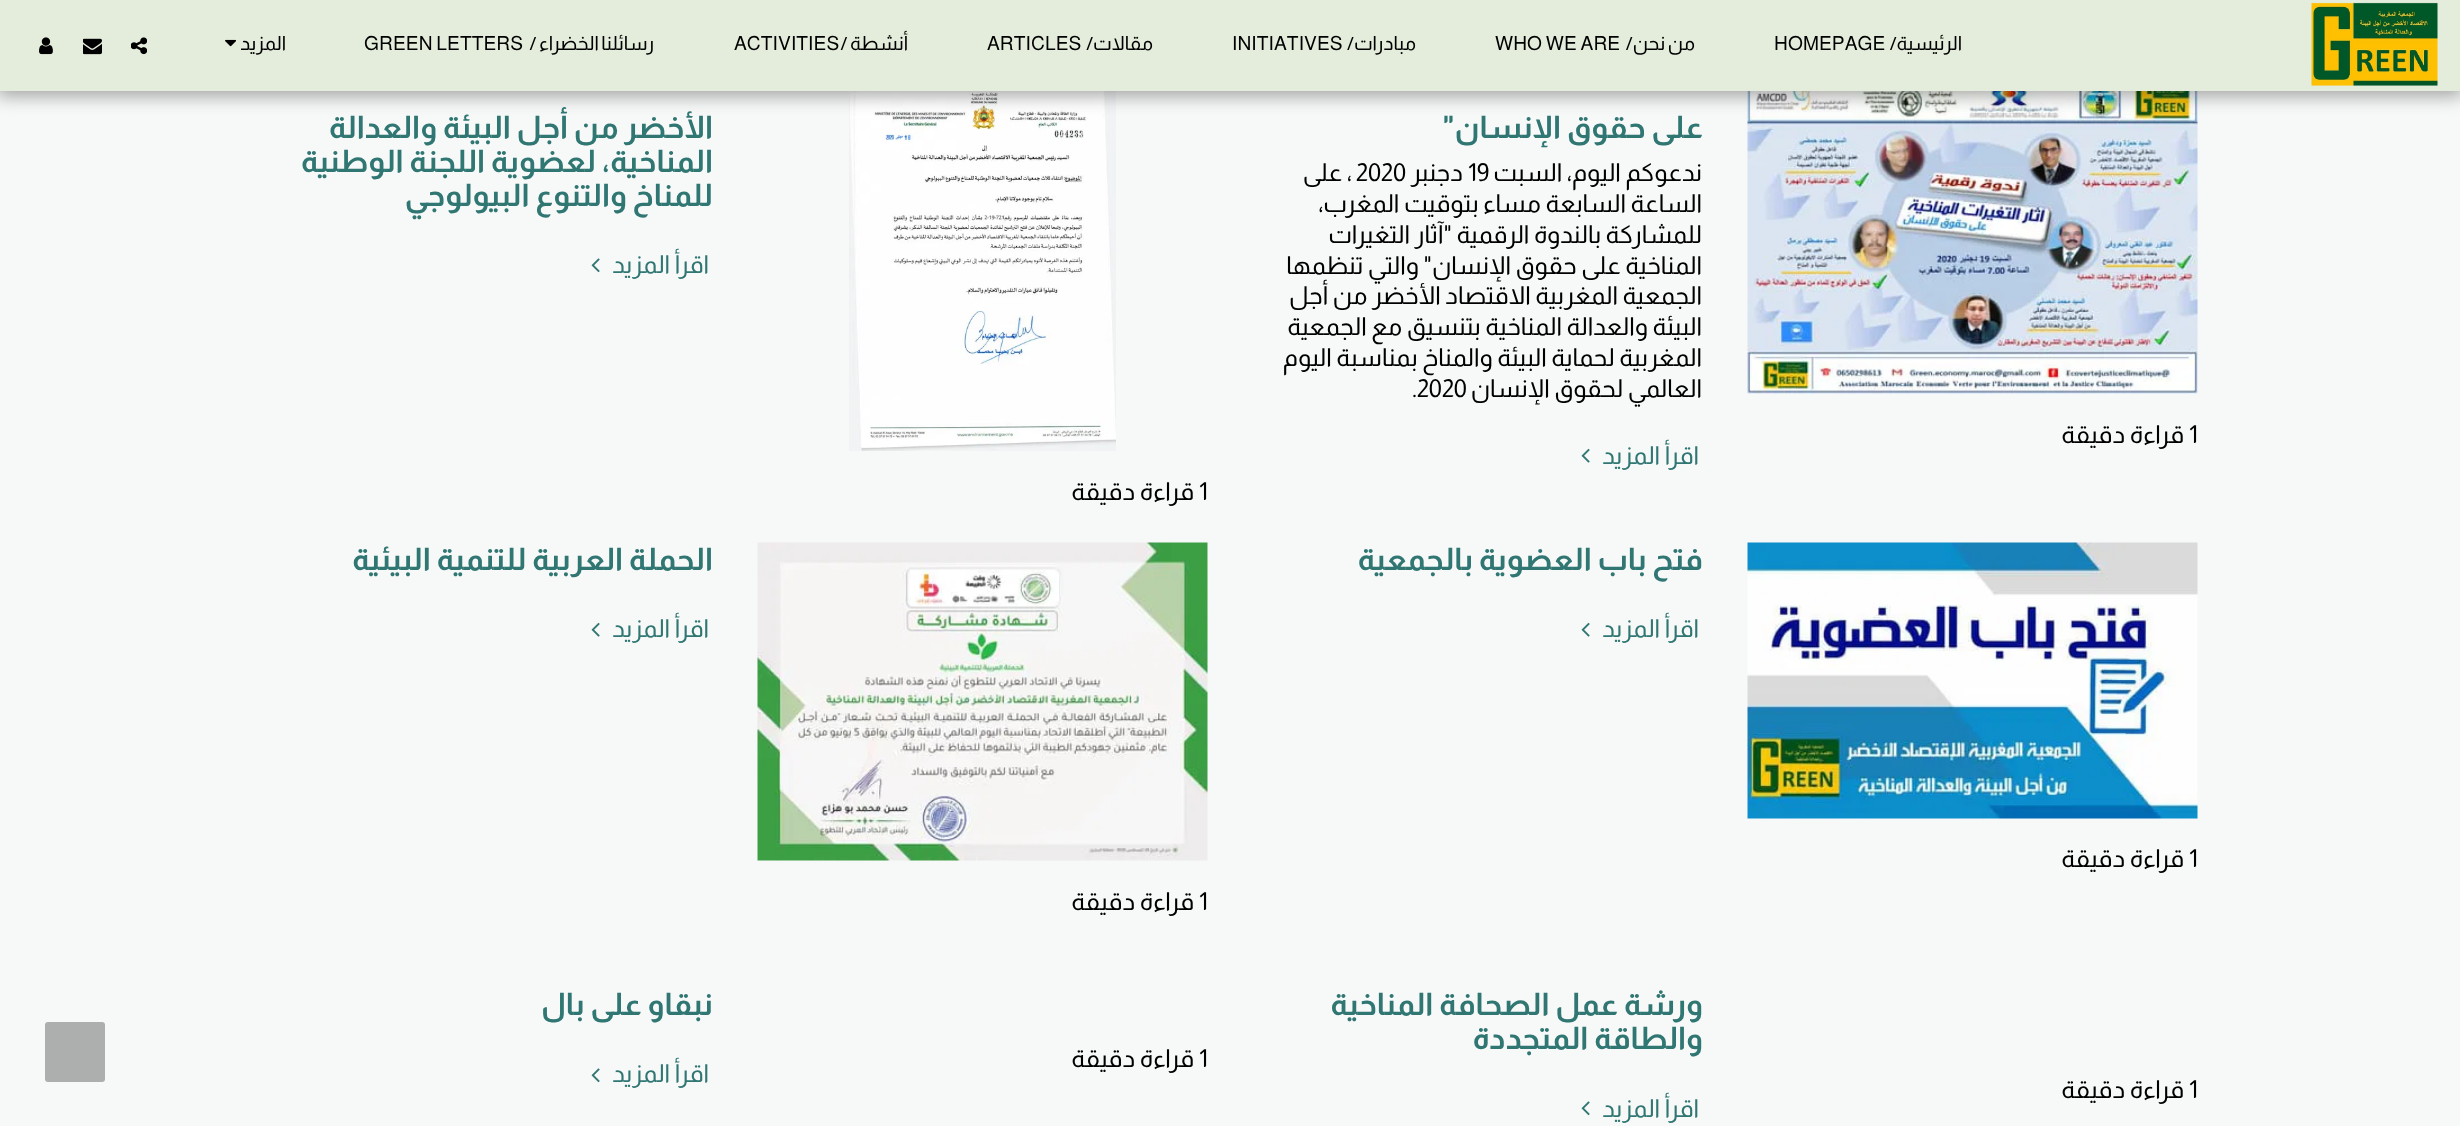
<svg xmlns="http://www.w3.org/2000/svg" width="2460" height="1126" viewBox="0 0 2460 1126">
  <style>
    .t1 { font: 19.5px Almarai; letter-spacing: 0.1px; direction: rtl; fill: #000; }
    .t2 { font: 19.5px Almarai; letter-spacing: 0.1px; fill: #000; }
    .t3 { font: 24.75px Almarai; fill: #000; }
    .t4 { font: 24.75px Almarai; direction: rtl; fill: #000; }
    .t5 { font: bold 31px Almarai; direction: rtl; fill: #307672; }
    .t6 { font: 24.75px Almarai; direction: rtl; fill: #307672; }
  </style>
  <rect width="100%" height="100%" fill="#f7f9f8"/>
  <image x="1747" y="91" width="451" height="303" href="images/6.png"/>
  <image x="849" y="91" width="267" height="360" href="images/9.png"/>
  <rect x="-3" y="0" width="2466" height="96" fill="#00000059" filter="blur(9px)"/>
  <rect x="0" y="0" width="2460" height="91" fill="#e4eddb"/>
  <image x="2311" y="2" width="127" height="84" href="images/1.png"/>
  <text x="1962" y="50" class="t1">الرئيسية/</text>
  <text x="1774" y="50" class="t2">HOMEPAGE</text>
  <text x="1695" y="50" word-spacing="-1" class="t1">من نحن/</text>
  <text x="1495" y="50" class="t2">WHO WE ARE</text>
  <text x="1416" y="50" class="t1">مبادرات/</text>
  <text x="1232" y="50" class="t2">INITIATIVES</text>
  <text x="1153" y="50" class="t1">مقالات/</text>
  <text x="987" y="50" class="t2">ARTICLES</text>
  <text x="908" y="50" word-spacing="-1" class="t1">أنشطة /</text>
  <text x="734" y="50" class="t2">ACTIVITIES</text>
  <text x="654" y="50" word-spacing="-1" class="t1">رسائلنا الخضراء /</text>
  <text x="364" y="50" class="t2">GREEN LETTERS</text>
  <text x="286" y="50" class="t1">المزيد</text>
  <image x="225" y="39" width="11" height="8" href="images/2.png"/>
  <image x="131" y="37" width="16" height="18" href="images/3.png"/>
  <image x="83" y="38" width="19" height="17" href="images/4.png"/>
  <image x="39" y="37" width="14" height="18" href="images/5.png"/>
  <text x="2189" y="443" class="t3">1</text>
  <text x="2184" y="443" class="t4">قراءة دقيقة</text>
  <text x="1703" y="138" class="t5">على حقوق الإنسان"</text>
  <text x="1702" y="181" class="t4">ندعوكم اليوم، السبت</text>
  <text x="1468" y="181" class="t3">19</text>
  <text x="1463" y="181" class="t4">دجنبر</text>
  <text x="1356" y="181" class="t3">2020</text>
  <text x="1352" y="181" class="t4">، على</text>
  <text x="1702" y="212" class="t4">الساعة السابعة مساء بتوقيت المغرب،</text>
  <text x="1702" y="243" class="t4">للمشاركة بالندوة الرقمية "آثار التغيرات</text>
  <text x="1702" y="274" class="t4">المناخية على حقوق الإنسان" والتي تنظمها</text>
  <text x="1702" y="304" class="t4">الجمعية المغربية الاقتصاد الأخضر من أجل</text>
  <text x="1702" y="335" class="t4">البيئة والعدالة المناخية بتنسيق مع الجمعية</text>
  <text x="1702" y="366" class="t4">المغربية لحماية البيئة والمناخ بمناسبة اليوم</text>
  <text x="1702" y="397" class="t4">العالمي لحقوق الإنسان</text>
  <text x="1412" y="397" class="t3">.2020</text>
  <text x="1699" y="464" class="t6">اقرأ المزيد</text>
  <image x="1581" y="448" width="9" height="15" href="images/7.png"/>
  <text x="713" y="138" class="t5">الأخضر من أجل البيئة والعدالة</text>
  <text x="713" y="172" class="t5">المناخية، لعضوية اللجنة الوطنية</text>
  <text x="713" y="206" class="t5">للمناخ والتنوع البيولوجي</text>
  <text x="709" y="273" class="t6">اقرأ المزيد</text>
  <image x="591" y="258" width="9" height="15" href="images/8.png"/>
  <text x="1199" y="500" class="t3">1</text>
  <text x="1194" y="500" class="t4">قراءة دقيقة</text>
  <text x="1703" y="570" class="t5">فتح باب العضوية بالجمعية</text>
  <text x="1699" y="637" class="t6">اقرأ المزيد</text>
  <image x="1581" y="622" width="9" height="15" href="images/7.png"/>
  <image x="1747" y="542" width="451" height="277" href="images/10.png"/>
  <text x="2189" y="867" class="t3">1</text>
  <text x="2184" y="867" class="t4">قراءة دقيقة</text>
  <text x="713" y="570" class="t5">الحملة العربية للتنمية البيئية</text>
  <text x="709" y="637" class="t6">اقرأ المزيد</text>
  <image x="591" y="622" width="9" height="15" href="images/7.png"/>
  <image x="757" y="542" width="451" height="319" href="images/11.png"/>
  <text x="1199" y="910" class="t3">1</text>
  <text x="1194" y="910" class="t4">قراءة دقيقة</text>
  <text x="2189" y="1098" class="t3">1</text>
  <text x="2184" y="1098" class="t4">قراءة دقيقة</text>
  <text x="1703" y="1015" class="t5">ورشة عمل الصحافة المناخية</text>
  <text x="1703" y="1049" class="t5">والطاقة المتجددة</text>
  <text x="1699" y="1117" class="t6">اقرأ المزيد</text>
  <image x="1581" y="1101" width="9" height="15" href="images/8.png"/>
  <text x="1199" y="1067" class="t3">1</text>
  <text x="1194" y="1067" class="t4">قراءة دقيقة</text>
  <text x="713" y="1015" class="t5">نبقاو على بال</text>
  <text x="709" y="1082" class="t6">اقرأ المزيد</text>
  <image x="591" y="1068" width="9" height="15" href="images/8.png"/>
  <rect x="45" y="1022" width="60" height="60" rx="3" fill="#adaeae"/>
</svg>
